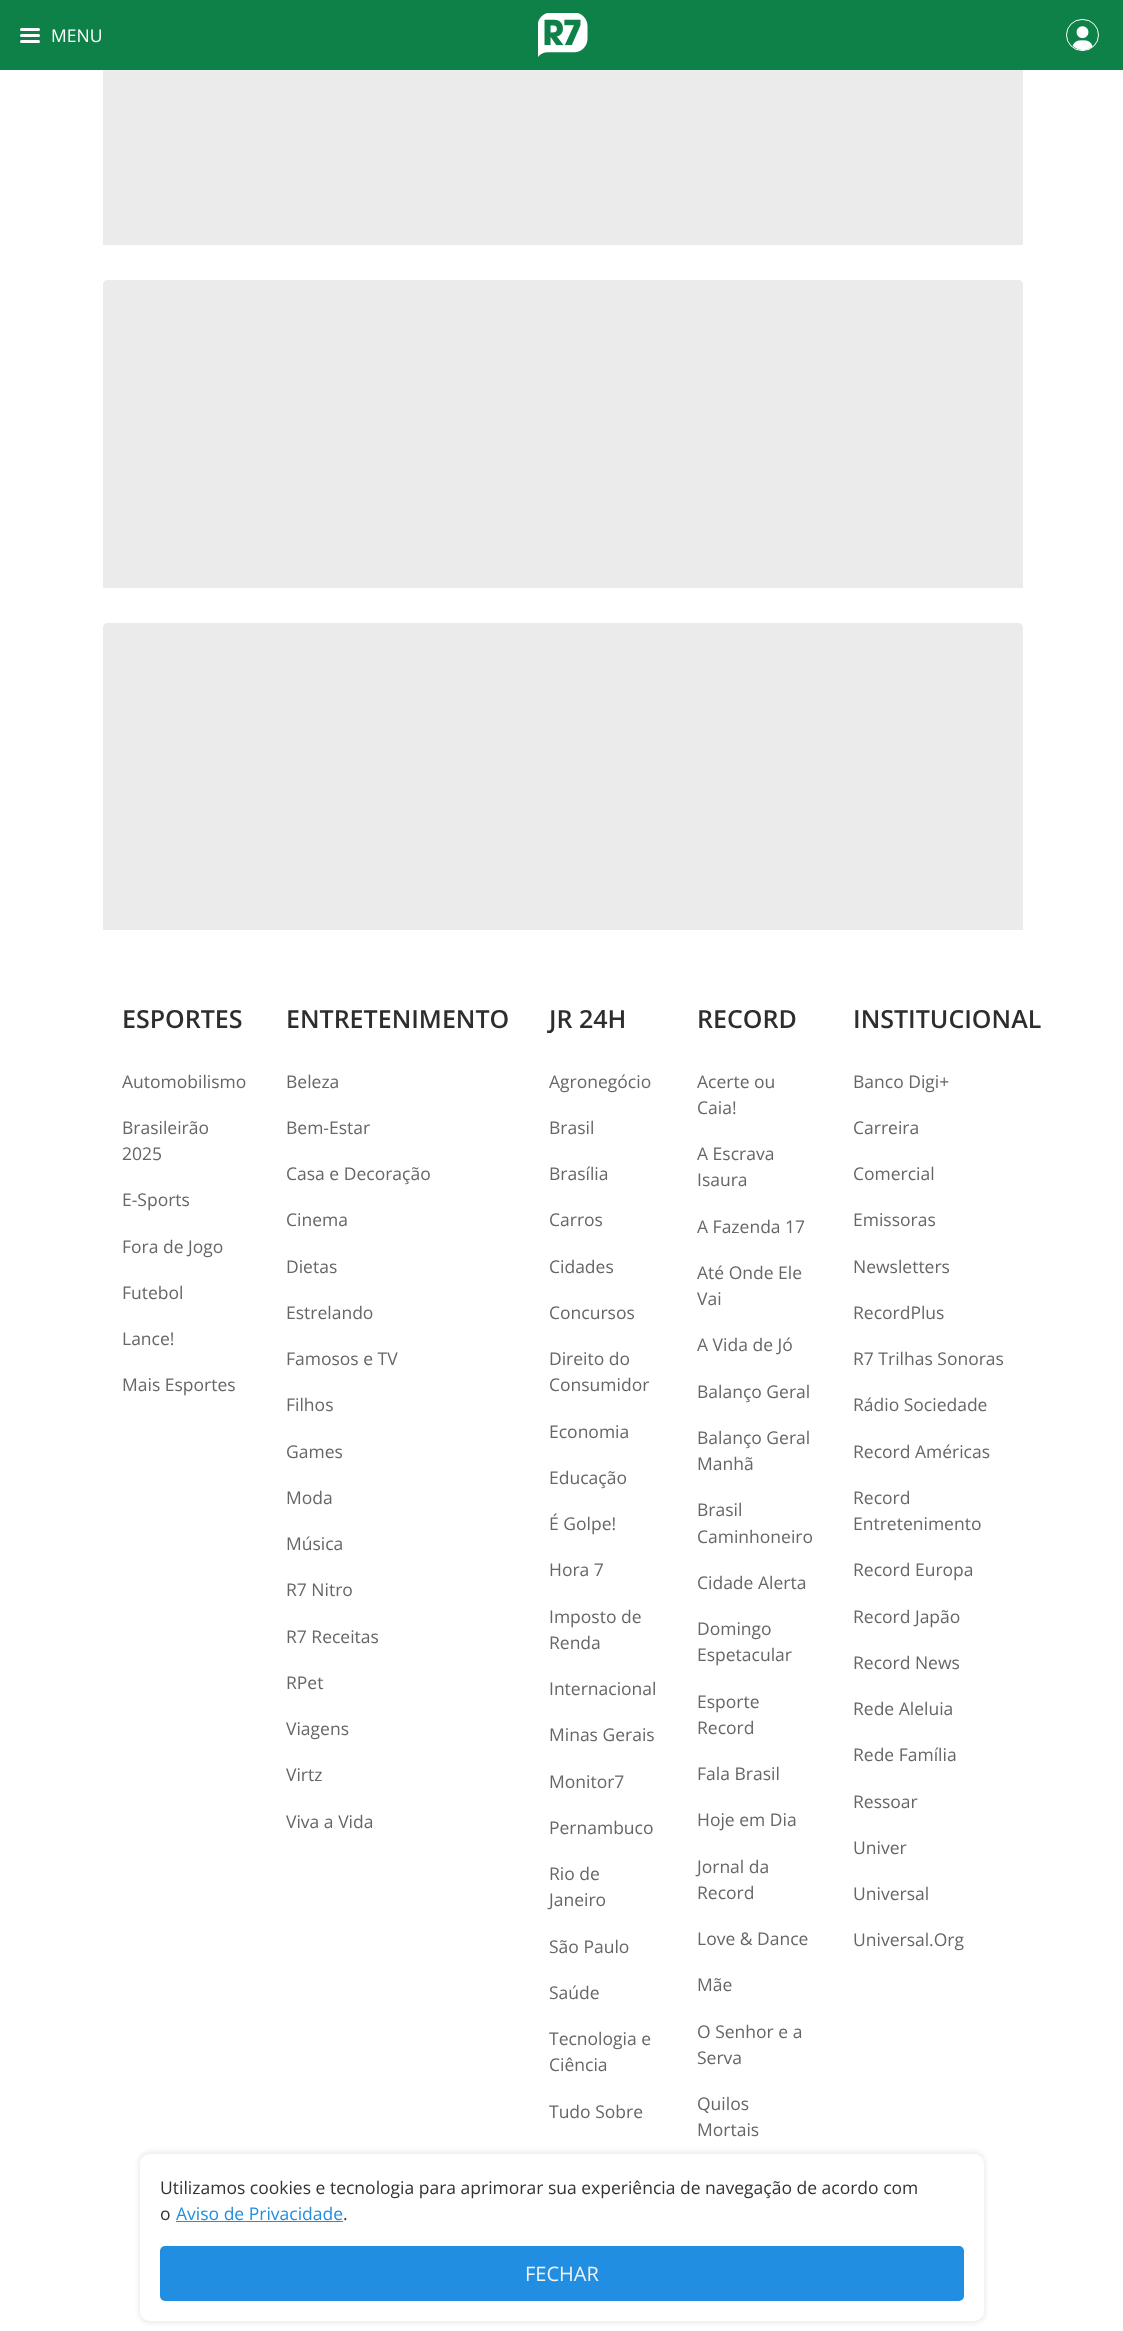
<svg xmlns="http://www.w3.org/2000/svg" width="1123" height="2331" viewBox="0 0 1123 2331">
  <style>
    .t1 { font: 17.5px Open Sans; fill: #fff; }
    .t2 { font: 600 25px Open Sans; fill: #2d2d2f; }
    .t3 { font: 17.5px Open Sans; fill: #666; }
    .t4 { font: 17.5px Open Sans; fill: #333; }
    .t5 { font: 17.5px Open Sans; fill: #218ee1; }
    .t6 { font: 20px Open Sans; fill: #f0f2f3; }
  </style>
  <rect width="100%" height="100%" fill="#fff"/>
  <rect x="0" y="0" width="1123" height="70" fill="#0e8148"/>
  <rect x="20" y="28" width="20" height="3" rx="1.5" fill="#fff"/>
  <rect x="20" y="34" width="20" height="3" rx="1.5" fill="#fff"/>
  <rect x="20" y="40" width="20" height="3" rx="1.5" fill="#fff"/>
  <text x="51" y="42" class="t1">MENU</text>
  <image x="538" y="13" width="50" height="44" href="images/1.png"/>
  <rect x="1066.5" y="19.5" width="32" height="31" rx="15.5" fill="none" stroke="#fff"/>
  <image x="1072" y="26" width="21" height="24" href="images/2.png"/>
  <rect x="103" y="70" width="920" height="175" fill="#ebebeb"/>
  <path d="M108 280H1018C1021 280 1023 282 1023 285V588H103V285C103 282 105 280 108 280Z" fill="#ebebeb"/>
  <path d="M108 623H1018C1021 623 1023 625 1023 628V930H103V628C103 625 105 623 108 623Z" fill="#ebebeb"/>
  <text x="122" y="1028" class="t2">ESPORTES</text>
  <text x="122" y="1088" class="t3">Automobilismo</text>
  <text x="122" y="1134" class="t3">Brasileirão</text>
  <text x="122" y="1160" class="t3">2025</text>
  <text x="122" y="1206" class="t3">E-Sports</text>
  <text x="122" y="1253" class="t3">Fora de Jogo</text>
  <text x="122" y="1299" class="t3">Futebol</text>
  <text x="122" y="1345" class="t3">Lance!</text>
  <text x="122" y="1391" class="t3">Mais Esportes</text>
  <text x="286" y="1028" class="t2">ENTRETENIMENTO</text>
  <text x="286" y="1088" class="t3">Beleza</text>
  <text x="286" y="1134" class="t3">Bem-Estar</text>
  <text x="286" y="1180" class="t3">Casa e Decoração</text>
  <text x="286" y="1226" class="t3">Cinema</text>
  <text x="286" y="1273" class="t3">Dietas</text>
  <text x="286" y="1319" class="t3">Estrelando</text>
  <text x="286" y="1365" class="t3">Famosos e TV</text>
  <text x="286" y="1411" class="t3">Filhos</text>
  <text x="286" y="1458" class="t3">Games</text>
  <text x="286" y="1504" class="t3">Moda</text>
  <text x="286" y="1550" class="t3">Música</text>
  <text x="286" y="1596" class="t3">R7 Nitro</text>
  <text x="286" y="1643" class="t3">R7 Receitas</text>
  <text x="286" y="1689" class="t3">RPet</text>
  <text x="286" y="1735" class="t3">Viagens</text>
  <text x="286" y="1781" class="t3">Virtz</text>
  <text x="286" y="1828" class="t3">Viva a Vida</text>
  <text x="549" y="1028" class="t2">JR 24H</text>
  <text x="549" y="1088" class="t3">Agronegócio</text>
  <text x="549" y="1134" class="t3">Brasil</text>
  <text x="549" y="1180" class="t3">Brasília</text>
  <text x="549" y="1226" class="t3">Carros</text>
  <text x="549" y="1273" class="t3">Cidades</text>
  <text x="549" y="1319" class="t3">Concursos</text>
  <text x="549" y="1365" class="t3">Direito do</text>
  <text x="549" y="1391" class="t3">Consumidor</text>
  <text x="549" y="1438" class="t3">Economia</text>
  <text x="549" y="1484" class="t3">Educação</text>
  <text x="549" y="1530" class="t3">É Golpe!</text>
  <text x="549" y="1576" class="t3">Hora 7</text>
  <text x="549" y="1623" class="t3">Imposto de</text>
  <text x="549" y="1649" class="t3">Renda</text>
  <text x="549" y="1695" class="t3">Internacional</text>
  <text x="549" y="1741" class="t3">Minas Gerais</text>
  <text x="549" y="1788" class="t3">Monitor7</text>
  <text x="549" y="1834" class="t3">Pernambuco</text>
  <text x="549" y="1880" class="t3">Rio de</text>
  <text x="549" y="1906" class="t3">Janeiro</text>
  <text x="549" y="1953" class="t3">São Paulo</text>
  <text x="549" y="1999" class="t3">Saúde</text>
  <text x="549" y="2045" class="t3">Tecnologia e</text>
  <text x="549" y="2071" class="t3">Ciência</text>
  <text x="549" y="2118" class="t3">Tudo Sobre</text>
  <text x="697" y="1028" class="t2">RECORD</text>
  <text x="697" y="1088" class="t3">Acerte ou</text>
  <text x="697" y="1114" class="t3">Caia!</text>
  <text x="697" y="1160" class="t3">A Escrava</text>
  <text x="697" y="1186" class="t3">Isaura</text>
  <text x="697" y="1233" class="t3">A Fazenda 17</text>
  <text x="697" y="1279" class="t3">Até Onde Ele</text>
  <text x="697" y="1305" class="t3">Vai</text>
  <text x="697" y="1351" class="t3">A Vida de Jó</text>
  <text x="697" y="1398" class="t3">Balanço Geral</text>
  <text x="697" y="1444" class="t3">Balanço Geral</text>
  <text x="697" y="1470" class="t3">Manhã</text>
  <text x="697" y="1516" class="t3">Brasil</text>
  <text x="697" y="1543" class="t3">Caminhoneiro</text>
  <text x="697" y="1589" class="t3">Cidade Alerta</text>
  <text x="697" y="1635" class="t3">Domingo</text>
  <text x="697" y="1661" class="t3">Espetacular</text>
  <text x="697" y="1708" class="t3">Esporte</text>
  <text x="697" y="1734" class="t3">Record</text>
  <text x="697" y="1780" class="t3">Fala Brasil</text>
  <text x="697" y="1826" class="t3">Hoje em Dia</text>
  <text x="697" y="1873" class="t3">Jornal da</text>
  <text x="697" y="1899" class="t3">Record</text>
  <text x="697" y="1945" class="t3">Love &amp; Dance</text>
  <text x="697" y="1991" class="t3">Mãe</text>
  <text x="697" y="2038" class="t3">O Senhor e a</text>
  <text x="697" y="2064" class="t3">Serva</text>
  <text x="697" y="2110" class="t3">Quilos</text>
  <text x="697" y="2136" class="t3">Mortais</text>
  <text x="853" y="1028" class="t2">INSTITUCIONAL</text>
  <text x="853" y="1088" class="t3">Banco Digi+</text>
  <text x="853" y="1134" class="t3">Carreira</text>
  <text x="853" y="1180" class="t3">Comercial</text>
  <text x="853" y="1226" class="t3">Emissoras</text>
  <text x="853" y="1273" class="t3">Newsletters</text>
  <text x="853" y="1319" class="t3">RecordPlus</text>
  <text x="853" y="1365" class="t3">R7 Trilhas Sonoras</text>
  <text x="853" y="1411" class="t3">Rádio Sociedade</text>
  <text x="853" y="1458" class="t3">Record Américas</text>
  <text x="853" y="1504" class="t3">Record</text>
  <text x="853" y="1530" class="t3">Entretenimento</text>
  <text x="853" y="1576" class="t3">Record Europa</text>
  <text x="853" y="1623" class="t3">Record Japão</text>
  <text x="853" y="1669" class="t3">Record News</text>
  <text x="853" y="1715" class="t3">Rede Aleluia</text>
  <text x="853" y="1761" class="t3">Rede Família</text>
  <text x="853" y="1808" class="t3">Ressoar</text>
  <text x="853" y="1854" class="t3">Univer</text>
  <text x="853" y="1900" class="t3">Universal</text>
  <text x="853" y="1946" class="t3">Universal.Org</text>
  <rect x="138" y="2151" width="848" height="173" rx="13" fill="#33333314" filter="blur(2px)"/>
  <rect x="140" y="2154" width="844" height="167" rx="10" fill="#fff"/>
  <text x="160" y="2194" class="t4">Utilizamos cookies e tecnologia para aprimorar sua experiência de navegação de acordo com</text>
  <text x="160" y="2220" class="t4">o</text>
  <text x="176" y="2220" class="t5">Aviso de Privacidade</text>
  <rect x="176" y="2221" width="167" height="1" fill="#218ee1"/>
  <text x="343" y="2220" class="t4">.</text>
  <rect x="160" y="2246" width="804" height="55" rx="5" fill="#218ee1"/>
  <text x="525" y="2281" class="t6">FECHAR</text>
</svg>
